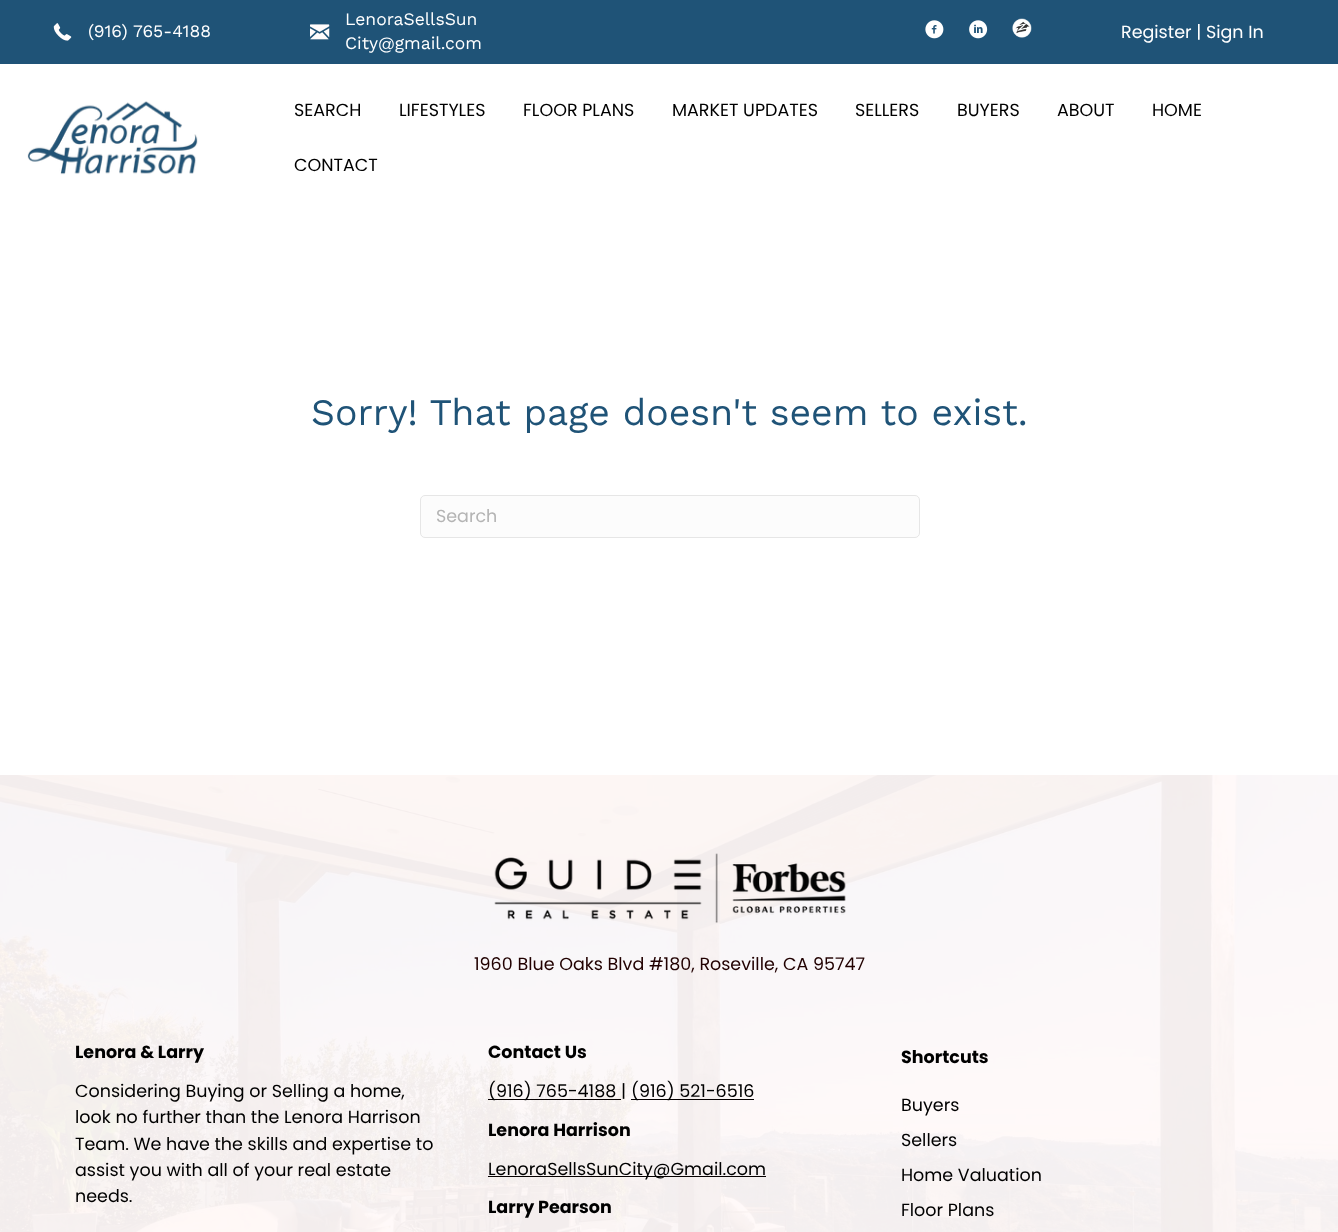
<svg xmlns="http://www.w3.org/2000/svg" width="1338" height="1232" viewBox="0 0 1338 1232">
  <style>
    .t1 { font: 17.5px Work Sans; fill: #fff; }
    .t2 { font: 17.5px Poppins; fill: #fff; }
    .t3 { font: 17.5px Poppins; fill: #000; }
    .t4 { font: 37.5px Work Sans; fill: #1f5377; }
    .t5 { font: 17.5px Poppins; fill: #b4b4b4; }
    .t6 { font: 17.5px Poppins; fill: #210000; }
    .t7 { font: bold 17.5px Poppins; fill: #000; }
  </style>
  <rect width="100%" height="100%" fill="#fff"/>
  <rect x="0" y="0" width="1338" height="64" fill="#1f5377"/>
  <image x="53" y="23" width="19" height="18" href="images/1.png"/>
  <text x="88" y="37" class="t1">(916) 765-4188</text>
  <image x="310" y="24" width="20" height="16" href="images/2.png"/>
  <text x="345" y="25" class="t1">LenoraSellsSun</text>
  <text x="345" y="49" class="t1">City@gmail.com</text>
  <image x="925" y="20" width="19" height="19" href="images/3.png"/>
  <image x="969" y="20" width="19" height="19" href="images/4.png"/>
  <image x="1012" y="18" width="20" height="20" href="images/5.png"/>
  <text x="1121" y="38" class="t2">Register | Sign In</text>
  <image x="27" y="101" width="171" height="74" href="images/6.png"/>
  <text x="294" y="116" class="t3">SEARCH</text>
  <text x="399" y="116" class="t3">LIFESTYLES</text>
  <text x="523" y="116" class="t3">FLOOR PLANS</text>
  <text x="672" y="116" class="t3">MARKET UPDATES</text>
  <text x="855" y="116" class="t3">SELLERS</text>
  <text x="957" y="116" class="t3">BUYERS</text>
  <text x="1057" y="116" class="t3">ABOUT</text>
  <text x="1152" y="116" class="t3">HOME</text>
  <text x="294" y="171" class="t3">CONTACT</text>
  <text x="311" y="425" class="t4">Sorry! That page doesn't seem to exist.</text>
  <rect x="420.5" y="495.5" width="499" height="42" rx="4.5" fill="#fcfcfc" stroke="#e6e6e6"/>
  <text x="436" y="522" class="t5">Search</text>
  <image x="0" y="775" width="1338" height="457" href="images/7.png"/>
  <image x="494" y="853" width="352" height="70" href="images/8.png"/>
  <text x="474" y="970" class="t6">1960 Blue Oaks Blvd #180, Roseville, CA 95747</text>
  <text x="75" y="1058" class="t7">Lenora &amp; Larry</text>
  <text x="75" y="1097" class="t3">Considering Buying or Selling a home,</text>
  <text x="75" y="1123" class="t3">look no further than the Lenora Harrison</text>
  <text x="75" y="1150" class="t3">Team. We have the skills and expertise to</text>
  <text x="75" y="1176" class="t3">assist you with all of your real estate</text>
  <text x="75" y="1202" class="t3">needs.</text>
  <text x="488" y="1058" class="t7">Contact Us</text>
  <rect x="488" y="1099" width="133" height="1" fill="#050000"/>
  <text x="488" y="1097" class="t3">(916) 765-4188 |</text>
  <rect x="631" y="1099" width="123" height="1" fill="#050000"/>
  <text x="631" y="1097" class="t3">(916) 521-6516</text>
  <text x="488" y="1136" class="t7">Lenora Harrison</text>
  <rect x="488" y="1176" width="278" height="1" fill="#050000"/>
  <text x="488" y="1175" class="t3">LenoraSellsSunCity@Gmail.com</text>
  <text x="488" y="1213" class="t7">Larry Pearson</text>
  <text x="901" y="1063" class="t7">Shortcuts</text>
  <text x="901" y="1111" class="t3">Buyers</text>
  <text x="901" y="1146" class="t3">Sellers</text>
  <text x="901" y="1181" class="t3">Home Valuation</text>
  <text x="901" y="1216" class="t3">Floor Plans</text>
</svg>
